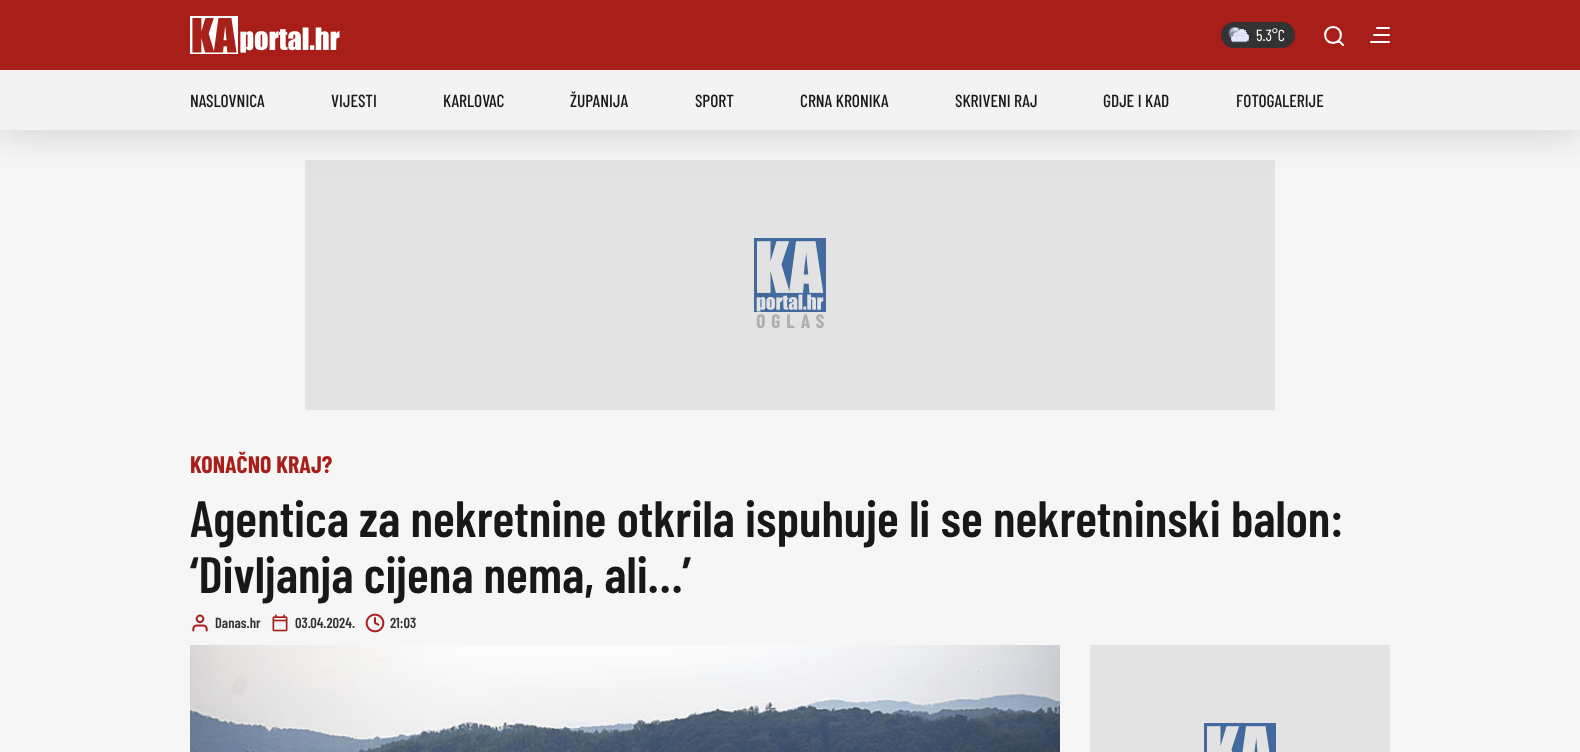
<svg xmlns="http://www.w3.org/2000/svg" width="1580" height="752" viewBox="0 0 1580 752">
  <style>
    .t1 { font: 16px Barlow Condensed; fill: #fff; }
    .t2 { font: 500 17.5px Barlow Condensed; fill: #191818; }
    .t3 { font: bold 24px Barlow Condensed; fill: #a81f1a; }
    .t4 { font: 600 51.2px Barlow Condensed; fill: #191818; }
    .t5 { font: 600 14.5px Barlow Condensed; fill: #333; }
  </style>
  <rect width="100%" height="100%" fill="#f6f6f6"/>
  <rect x="305" y="160" width="970" height="250" fill="#e3e3e3"/>
  <rect x="0" y="70" width="1580" height="60" fill="#40404040" filter="blur(20px)"/>
  <rect x="0" y="0" width="1580" height="70" fill="#a81f1a"/>
  <image x="190" y="16" width="150" height="38" href="images/1.png"/>
  <rect x="1221" y="22" width="74" height="26" rx="13" fill="#333"/>
  <image x="1228" y="27" width="21" height="16" href="images/2.png"/>
  <text x="1256" y="41" class="t1">5.3°C</text>
  <path d="M1333 43C1343.5 43 1343.5 27 1333 27C1322.5 27 1322.5 43 1333 43ZM1343 45L1338.5 40.5" fill="none" stroke="#fff" stroke-width="2" stroke-linecap="round" stroke-linejoin="round"/>
  <rect x="1376" y="27" width="14" height="2" rx="1" fill="#fff"/>
  <rect x="1373" y="34" width="17" height="2" rx="1" fill="#fff"/>
  <rect x="1370" y="41" width="20" height="2" rx="1" fill="#fff"/>
  <rect x="0" y="70" width="1580" height="60" fill="#f3f3f3"/>
  <text x="190" y="107" class="t2">NASLOVNICA</text>
  <text x="331" y="107" class="t2">VIJESTI</text>
  <text x="443" y="107" class="t2">KARLOVAC</text>
  <text x="570" y="107" class="t2">ŽUPANIJA</text>
  <text x="695" y="107" class="t2">SPORT</text>
  <text x="800" y="107" class="t2">CRNA KRONIKA</text>
  <text x="955" y="107" class="t2">SKRIVENI RAJ</text>
  <text x="1103" y="107" class="t2">GDJE I KAD</text>
  <text x="1236" y="107" class="t2">FOTOGALERIJE</text>
  <image x="754" y="238" width="72" height="91" href="images/3.png"/>
  <text x="190" y="473" class="t3">KONAČNO KRAJ?</text>
  <text x="190" y="537" class="t4">Agentica za nekretnine otkrila ispuhuje li se nekretninski balon:</text>
  <text x="190" y="593" class="t4">‘Divljanja cijena nema, ali…’</text>
  <image x="192" y="614" width="16" height="18" href="images/4.png"/>
  <text x="215" y="628" class="t5">Danas.hr</text>
  <image x="272" y="614" width="16" height="18" href="images/5.png"/>
  <text x="295" y="628" class="t5">03.04.2024.</text>
  <image x="365" y="613" width="20" height="20" href="images/6.png"/>
  <text x="390" y="628" class="t5">21:03</text>
  <image x="190" y="645" width="870" height="107" href="images/7.png"/>
  <rect x="1090" y="645" width="300" height="107" fill="#e3e3e3"/>
  <image x="1204" y="723" width="72" height="29" href="images/8.png"/>
</svg>
